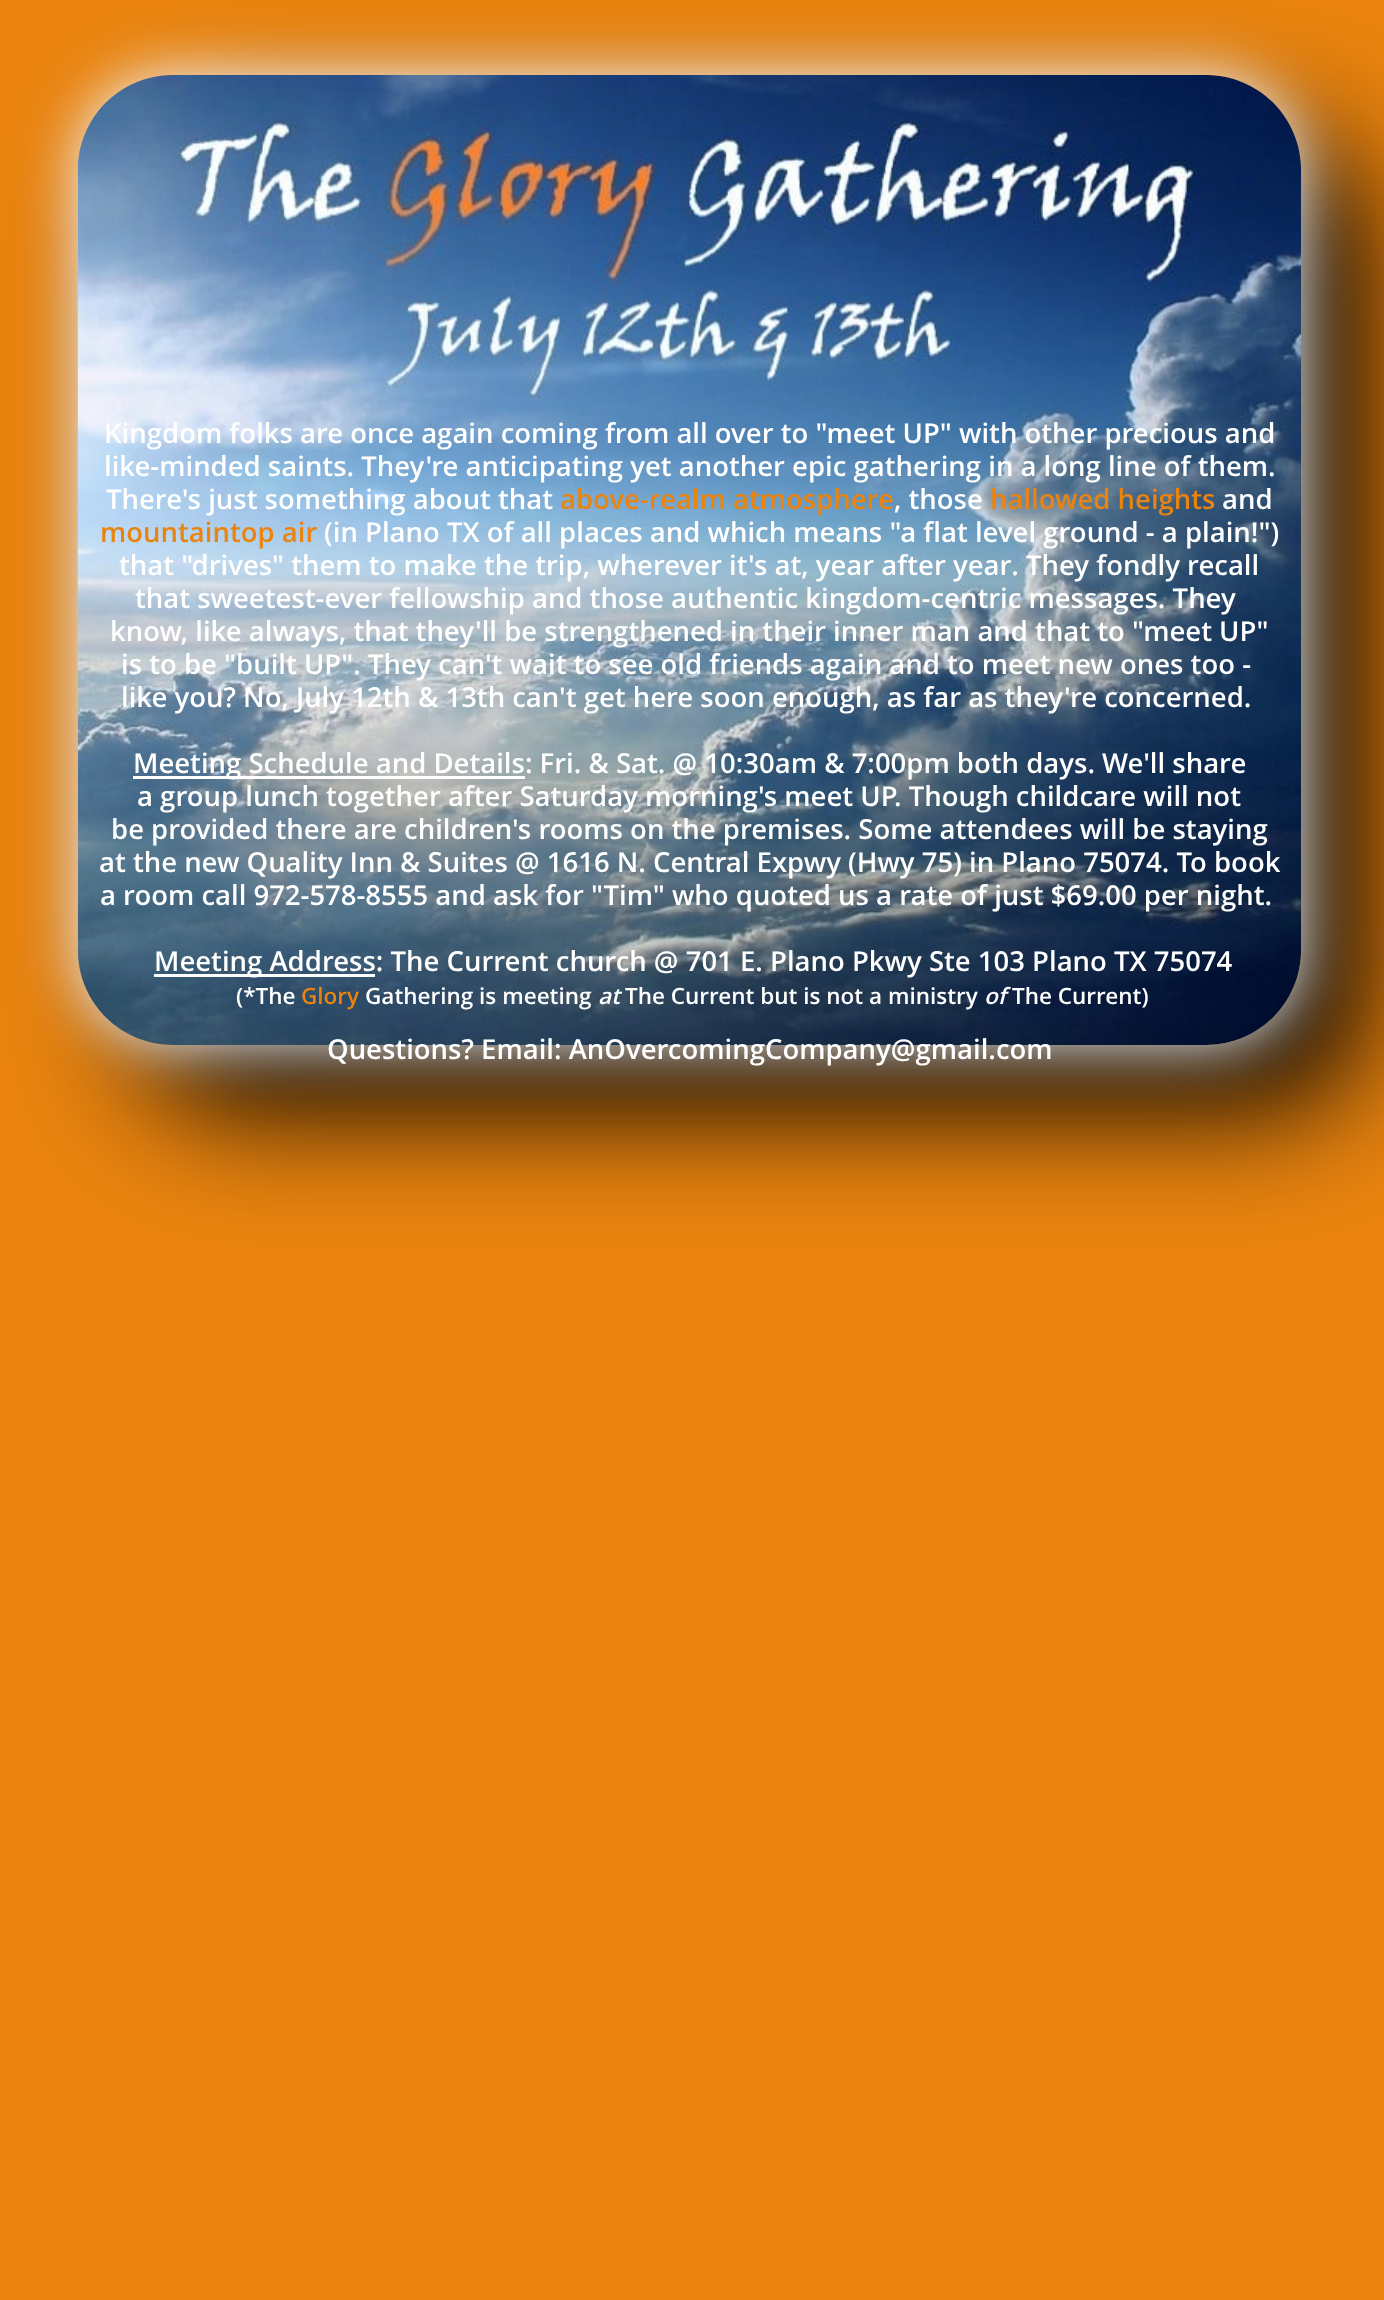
<svg xmlns="http://www.w3.org/2000/svg" width="1384" height="2300" viewBox="0 0 1384 2300">
  <style>
    .t1 { font: 600 27.5px Open Sans; fill: #fff; }
    .t2 { font: 600 27.5px Open Sans; fill: #ea840f; }
    .t3 { font: 600 22.5px Open Sans; fill: #fff; }
    .t4 { font: 600 22.5px Open Sans; fill: #ea840f; }
    .t5 { font: italic 600 22.5px Open Sans; fill: #fff; }
  </style>
  <defs>
    <clipPath id="clip1"><path d="M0 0H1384V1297H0ZM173 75H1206C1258.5 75 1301 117.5 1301 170V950C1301 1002.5 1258.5 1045 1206 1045H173C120.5 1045 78 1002.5 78 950V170C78 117.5 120.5 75 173 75Z" clip-rule="evenodd"/></clipPath>
    <clipPath id="clip2"><path d="M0 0H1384V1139H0ZM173 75H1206C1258.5 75 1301 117.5 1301 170V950C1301 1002.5 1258.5 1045 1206 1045H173C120.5 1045 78 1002.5 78 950V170C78 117.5 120.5 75 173 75Z" clip-rule="evenodd"/></clipPath>
  </defs>
  <rect width="100%" height="100%" fill="#ea840f"/>
  <image x="77" y="75" width="1225" height="970" href="images/1.png"/>
  <g clip-path="url(#clip1)">
    <rect x="140" y="138" width="1224" height="970" rx="95" fill="#000" filter="blur(62.5px)"/>
  </g>
  <g clip-path="url(#clip2)">
    <rect x="78" y="75" width="1223" height="970" rx="95" fill="#fff" filter="blur(31px)"/>
  </g>
  <text x="104" y="443" class="t1">Kingdom folks are once again coming from all over to "meet UP" with other precious and</text>
  <text x="104" y="476" class="t1">like-minded saints. They're anticipating yet another epic gathering in a long line of them.</text>
  <text x="106" y="509" class="t1">There's just something about that</text>
  <text x="560" y="509" class="t2">above-realm atmosphere</text>
  <text x="894" y="509" class="t1">, those</text>
  <text x="990" y="509" class="t2">hallowed heights</text>
  <text x="1222" y="509" class="t1">and</text>
  <text x="100" y="542" class="t2">mountaintop air</text>
  <text x="324" y="542" class="t1">(in Plano TX of all places and which means "a flat level ground - a plain!")</text>
  <text x="119" y="575" class="t1">that "drives" them to make the trip, wherever it's at, year after year. They fondly recall</text>
  <text x="135" y="608" class="t1">that sweetest-ever fellowship and those authentic kingdom-centric messages. They</text>
  <text x="110" y="641" class="t1">know, like always, that they'll be strengthened in their inner man and that to "meet UP"</text>
  <text x="121" y="674" class="t1">is to be "built UP". They can't wait to see old friends again and to meet new ones too -</text>
  <text x="121" y="707" class="t1">like you? No, July 12th &amp; 13th can't get here soon enough, as far as they're concerned.</text>
  <rect x="133" y="776" width="392" height="3" fill="#fff"/>
  <text x="133" y="773" class="t1">Meeting Schedule and Details: Fri. &amp; Sat. @ 10:30am &amp; 7:00pm both days. We'll share</text>
  <text x="137" y="806" class="t1">a group lunch together after Saturday morning's meet UP. Though childcare will not</text>
  <text x="111" y="839" class="t1">be provided there are children's rooms on the premises. Some attendees will be staying</text>
  <text x="99" y="872" class="t1">at the new Quality Inn &amp; Suites @ 1616 N. Central Expwy (Hwy 75) in Plano 75074. To book</text>
  <text x="100" y="905" class="t1">a room call 972-578-8555 and ask for "Tim" who quoted us a rate of just $69.00 per night.</text>
  <rect x="154" y="974" width="221" height="3" fill="#fff"/>
  <text x="154" y="971" class="t1">Meeting Address: The Current church @ 701 E. Plano Pkwy Ste 103 Plano TX 75074</text>
  <text x="236" y="1004" class="t3">(*The</text>
  <text x="301" y="1004" class="t4">Glory</text>
  <text x="365" y="1004" class="t3">Gathering is meeting</text>
  <text x="598" y="1004" class="t5">at</text>
  <text x="625" y="1004" class="t3">The Current but is not a ministry</text>
  <text x="984" y="1004" class="t5">of</text>
  <text x="1012" y="1004" class="t3">The Current)</text>
  <text x="327" y="1059" class="t1">Questions? Email: AnOvercomingCompany@gmail.com</text>
</svg>
